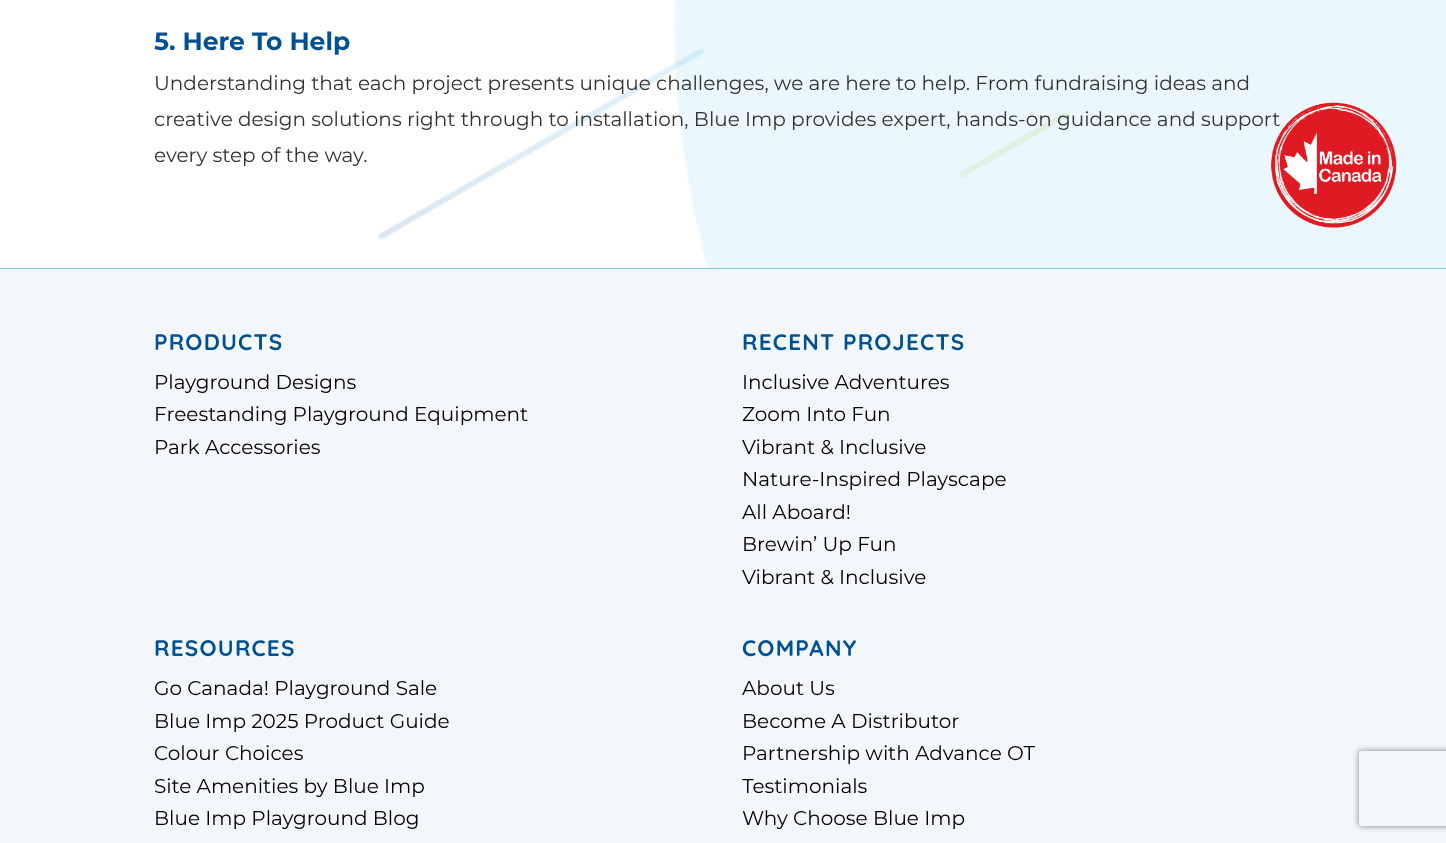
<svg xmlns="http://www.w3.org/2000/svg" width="1446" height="843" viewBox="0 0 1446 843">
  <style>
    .t1 { font: bold 25px Montserrat; fill: #005194; }
    .t2 { font: 20px Montserrat; fill: #333; }
    .t3 { font: bold 22.5px Quicksand; letter-spacing: 1.25px; fill: #005194; }
    .t4 { font: 20px Montserrat; fill: #000; }
  </style>
  <defs>
    <clipPath id="clip1"><path d="M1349 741H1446V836H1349ZM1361.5 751H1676.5C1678 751 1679 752 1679 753.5V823.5C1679 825 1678 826 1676.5 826H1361.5C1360 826 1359 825 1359 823.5V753.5C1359 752 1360 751 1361.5 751Z" clip-rule="evenodd"/></clipPath>
  </defs>
  <rect width="100%" height="100%" fill="#fff"/>
  <image x="674" y="0" width="772" height="268" href="images/1.png"/>
  <image x="378" y="48" width="691" height="192" href="images/2.png"/>
  <text x="154" y="50" class="t1">5. Here To Help</text>
  <text x="154" y="90" class="t2">Understanding that each project presents unique challenges, we are here to help. From fundraising ideas and</text>
  <text x="154" y="126" class="t2">creative design solutions right through to installation, Blue Imp provides expert, hands-on guidance and support</text>
  <text x="154" y="162" class="t2">every step of the way.</text>
  <image x="1271" y="102" width="126" height="126" href="images/3.png"/>
  <rect x="0" y="269" width="1446" height="574" fill="#f3f7fb"/>
  <rect x="0" y="268" width="1446" height="1" fill="#7fcaec"/>
  <text x="154" y="350" class="t3">PRODUCTS</text>
  <text x="154" y="389" class="t4">Playground Designs</text>
  <text x="154" y="421" class="t4">Freestanding Playground Equipment</text>
  <text x="154" y="454" class="t4">Park Accessories</text>
  <text x="742" y="350" class="t3">RECENT PROJECTS</text>
  <text x="742" y="389" class="t4">Inclusive Adventures</text>
  <text x="742" y="421" class="t4">Zoom Into Fun</text>
  <text x="742" y="454" class="t4">Vibrant &amp; Inclusive</text>
  <text x="742" y="486" class="t4">Nature-Inspired Playscape</text>
  <text x="742" y="519" class="t4">All Aboard!</text>
  <text x="742" y="551" class="t4">Brewin’ Up Fun</text>
  <text x="742" y="584" class="t4">Vibrant &amp; Inclusive</text>
  <text x="154" y="656" class="t3">RESOURCES</text>
  <text x="154" y="695" class="t4">Go Canada! Playground Sale</text>
  <text x="154" y="728" class="t4">Blue Imp 2025 Product Guide</text>
  <text x="154" y="760" class="t4">Colour Choices</text>
  <text x="154" y="793" class="t4">Site Amenities by Blue Imp</text>
  <text x="154" y="825" class="t4">Blue Imp Playground Blog</text>
  <text x="742" y="656" class="t3">COMPANY</text>
  <text x="742" y="695" class="t4">About Us</text>
  <text x="742" y="728" class="t4">Become A Distributor</text>
  <text x="742" y="760" class="t4">Partnership with Advance OT</text>
  <text x="742" y="793" class="t4">Testimonials</text>
  <text x="742" y="825" class="t4">Why Choose Blue Imp</text>
  <g clip-path="url(#clip1)">
    <rect x="1359" y="751" width="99" height="75" rx="2.5" fill="#808080" filter="blur(3px)"/>
  </g>
</svg>
